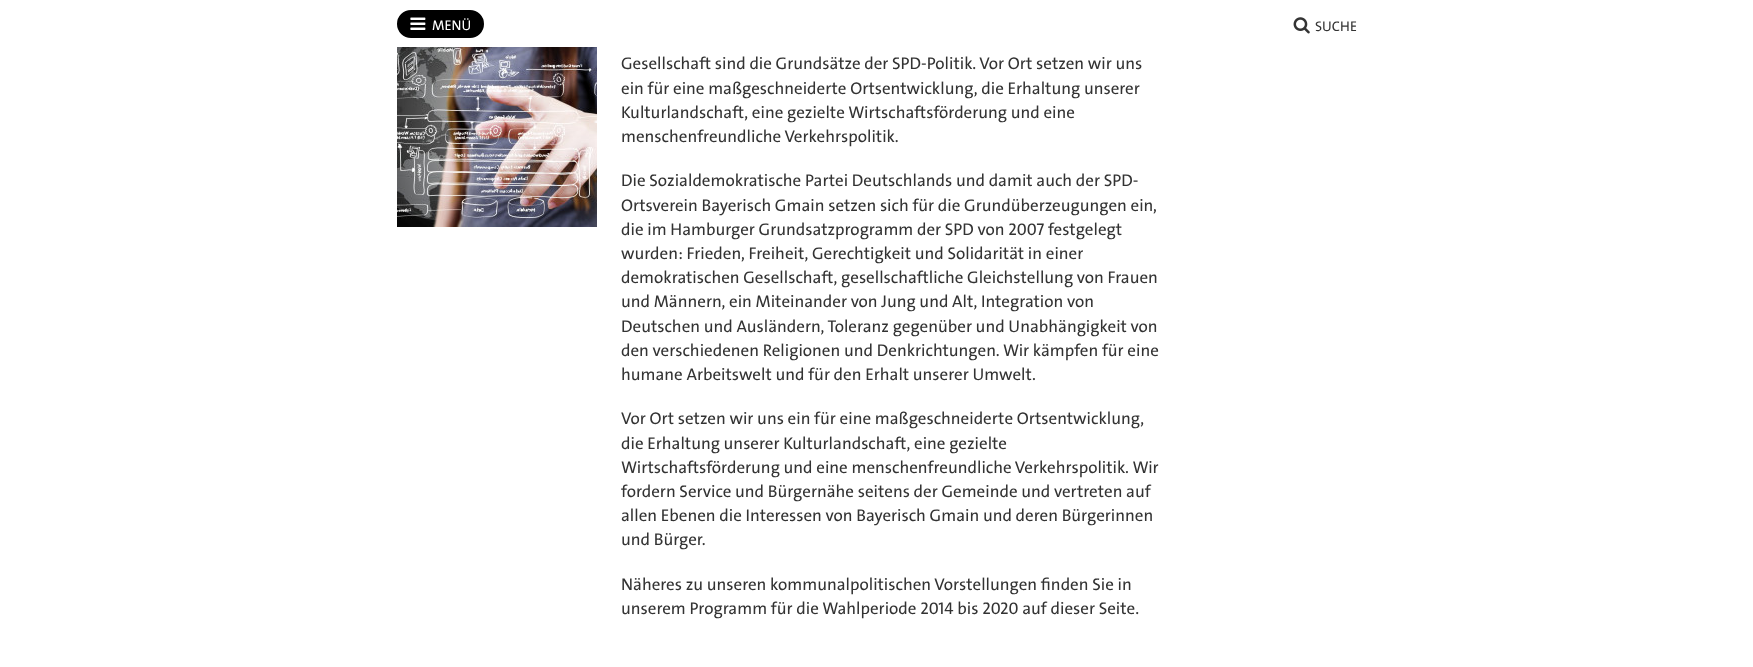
<svg xmlns="http://www.w3.org/2000/svg" width="1753" height="667" viewBox="0 0 1753 667">
  <style>
    .t1 { font: 500 14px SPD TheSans; fill: #fff; }
    .t2 { font: 500 14px SPD TheSans; fill: #333; }
    .t3 { font: 500 17px SPD TheSans; fill: #333; }
  </style>
  <rect width="100%" height="100%" fill="#fff"/>
  <rect x="398" y="11" width="85" height="26" rx="13" fill="#000" stroke="#000" stroke-width="2"/>
  <image x="410" y="17" width="16" height="13" href="images/1.png"/>
  <text x="432" y="30" class="t1">MENÜ</text>
  <image x="1293" y="17" width="17" height="17" href="images/2.png"/>
  <text x="1315" y="31" class="t2">SUCHE</text>
  <image x="397" y="47" width="200" height="180" href="images/3.png"/>
  <text x="621" y="69" class="t3">Gesellschaft sind die Grundsätze der SPD-Politik. Vor Ort setzen wir uns</text>
  <text x="621" y="94" class="t3">ein für eine maßgeschneiderte Ortsentwicklung, die Erhaltung unserer</text>
  <text x="621" y="118" class="t3">Kulturlandschaft, eine gezielte Wirtschaftsförderung und eine</text>
  <text x="621" y="142" class="t3">menschenfreundliche Verkehrspolitik.</text>
  <text x="621" y="186" class="t3">Die Sozialdemokratische Partei Deutschlands und damit auch der SPD-</text>
  <text x="621" y="211" class="t3">Ortsverein Bayerisch Gmain setzen sich für die Grundüberzeugungen ein,</text>
  <text x="621" y="235" class="t3">die im Hamburger Grundsatzprogramm der SPD von 2007 festgelegt</text>
  <text x="621" y="259" class="t3">wurden: Frieden, Freiheit, Gerechtigkeit und Solidarität in einer</text>
  <text x="621" y="283" class="t3">demokratischen Gesellschaft, gesellschaftliche Gleichstellung von Frauen</text>
  <text x="621" y="307" class="t3">und Männern, ein Miteinander von Jung und Alt, Integration von</text>
  <text x="621" y="332" class="t3">Deutschen und Ausländern, Toleranz gegenüber und Unabhängigkeit von</text>
  <text x="621" y="356" class="t3">den verschiedenen Religionen und Denkrichtungen. Wir kämpfen für eine</text>
  <text x="621" y="380" class="t3">humane Arbeitswelt und für den Erhalt unserer Umwelt.</text>
  <text x="621" y="424" class="t3">Vor Ort setzen wir uns ein für eine maßgeschneiderte Ortsentwicklung,</text>
  <text x="621" y="449" class="t3">die Erhaltung unserer Kulturlandschaft, eine gezielte</text>
  <text x="621" y="473" class="t3">Wirtschaftsförderung und eine menschenfreundliche Verkehrspolitik. Wir</text>
  <text x="621" y="497" class="t3">fordern Service und Bürgernähe seitens der Gemeinde und vertreten auf</text>
  <text x="621" y="521" class="t3">allen Ebenen die Interessen von Bayerisch Gmain und deren Bürgerinnen</text>
  <text x="621" y="545" class="t3">und Bürger.</text>
  <text x="621" y="590" class="t3">Näheres zu unseren kommunalpolitischen Vorstellungen finden Sie in</text>
  <text x="621" y="614" class="t3">unserem Programm für die Wahlperiode 2014 bis 2020 auf dieser Seite.</text>
</svg>
